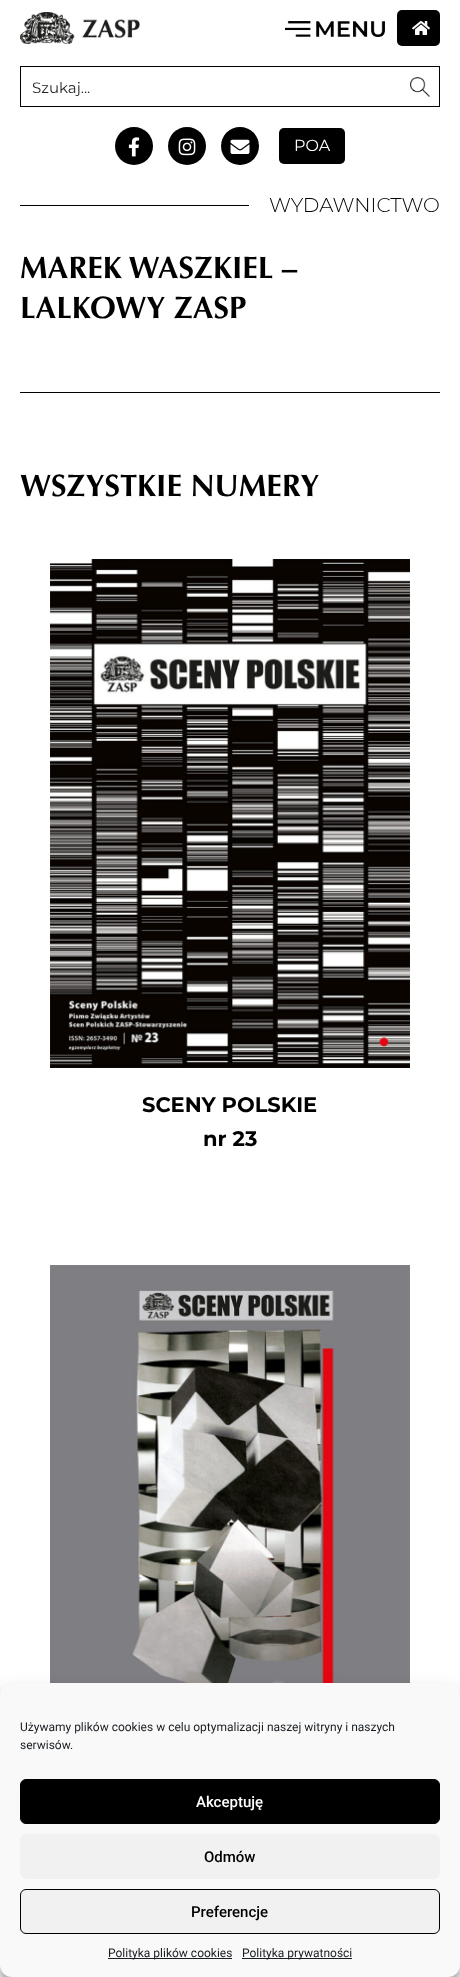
<svg xmlns="http://www.w3.org/2000/svg" width="460" height="1977" viewBox="0 0 460 1977">
  <style>
    .t1 { font: 15px Montserrat; fill: #262626; }
    .t2 { font: 16px Montserrat; fill: #fff; }
    .t3 { font: 300 20px Montserrat; fill: #000; }
    .t4 { font: bold 31px Optima; fill: #000; }
    .t5 { font: bold 21px Montserrat; fill: #000; }
    .t6 { font: 12px Roboto; fill: #191e23; }
    .t7 { font: 500 15px Roboto; fill: #fff; }
    .t8 { font: 500 15px Roboto; fill: #000; }
  </style>
  <rect width="100%" height="100%" fill="#fff"/>
  <image x="20" y="12" width="120" height="32" href="images/1.png"/>
  <image x="285" y="21" width="100" height="16" href="images/2.png"/>
  <rect x="397" y="10" width="43" height="36" rx="5" fill="#000"/>
  <image x="412" y="21" width="18" height="14" href="images/3.png"/>
  <rect x="20.5" y="66.5" width="419" height="40" fill="none" stroke="#000"/>
  <text x="32" y="93" class="t1">Szukaj...</text>
  <image x="410" y="77" width="20" height="20" href="images/4.png"/>
  <circle cx="134" cy="146" r="19" fill="#000"/>
  <image x="128" y="137" width="12" height="20" href="images/5.png"/>
  <circle cx="187" cy="146" r="19" fill="#000"/>
  <image x="178" y="138" width="18" height="18" href="images/6.png"/>
  <circle cx="240" cy="146" r="19" fill="#000"/>
  <image x="230" y="139" width="20" height="15" href="images/7.png"/>
  <rect x="279" y="128" width="66" height="36" rx="5" fill="#000"/>
  <text x="294" y="151" class="t2">POA</text>
  <rect x="20" y="205" width="229" height="1" fill="#000"/>
  <text x="269" y="212" class="t3">WYDAWNICTWO</text>
  <text x="20" y="278" class="t4">MAREK WASZKIEL –</text>
  <text x="20" y="318" class="t4">LALKOWY ZASP</text>
  <rect x="20" y="392" width="420" height="1" fill="#000"/>
  <text x="20" y="496" class="t4">WSZYSTKIE NUMERY</text>
  <image x="50" y="559" width="360" height="509" href="images/8.png"/>
  <text x="142" y="1112" class="t5">SCENY POLSKIE</text>
  <text x="203" y="1146" class="t5">nr 23</text>
  <image x="50" y="1265" width="360" height="418" href="images/9.png"/>
  <rect x="0" y="1689" width="460" height="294" rx="12" fill="#0000003b" filter="blur(3px)"/>
  <rect x="0" y="1693" width="460" height="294" rx="12" fill="#00000030" filter="blur(10px)"/>
  <rect x="0" y="1683" width="460" height="294" rx="12" fill="#f9f9f9"/>
  <text x="20" y="1731" class="t6">Używamy plików cookies w celu optymalizacji naszej witryny i naszych</text>
  <text x="20" y="1749" class="t6">serwisów.</text>
  <rect x="20.5" y="1779.5" width="419" height="44" rx="5.5" fill="#000" stroke="#000"/>
  <text x="196" y="1807" class="t7">Akceptuję</text>
  <rect x="20" y="1834" width="420" height="45" rx="6" fill="#f1f1f1"/>
  <text x="204" y="1862" class="t8">Odmów</text>
  <rect x="20.5" y="1889.5" width="419" height="44" rx="5.5" fill="#f1f1f1" stroke="#000"/>
  <text x="191" y="1917" class="t8">Preferencje</text>
  <rect x="108" y="1958" width="124" height="1" fill="#191e23"/>
  <text x="108" y="1957" class="t6">Polityka plików cookies</text>
  <rect x="242" y="1958" width="110" height="1" fill="#191e23"/>
  <text x="242" y="1957" class="t6">Polityka prywatności</text>
</svg>
